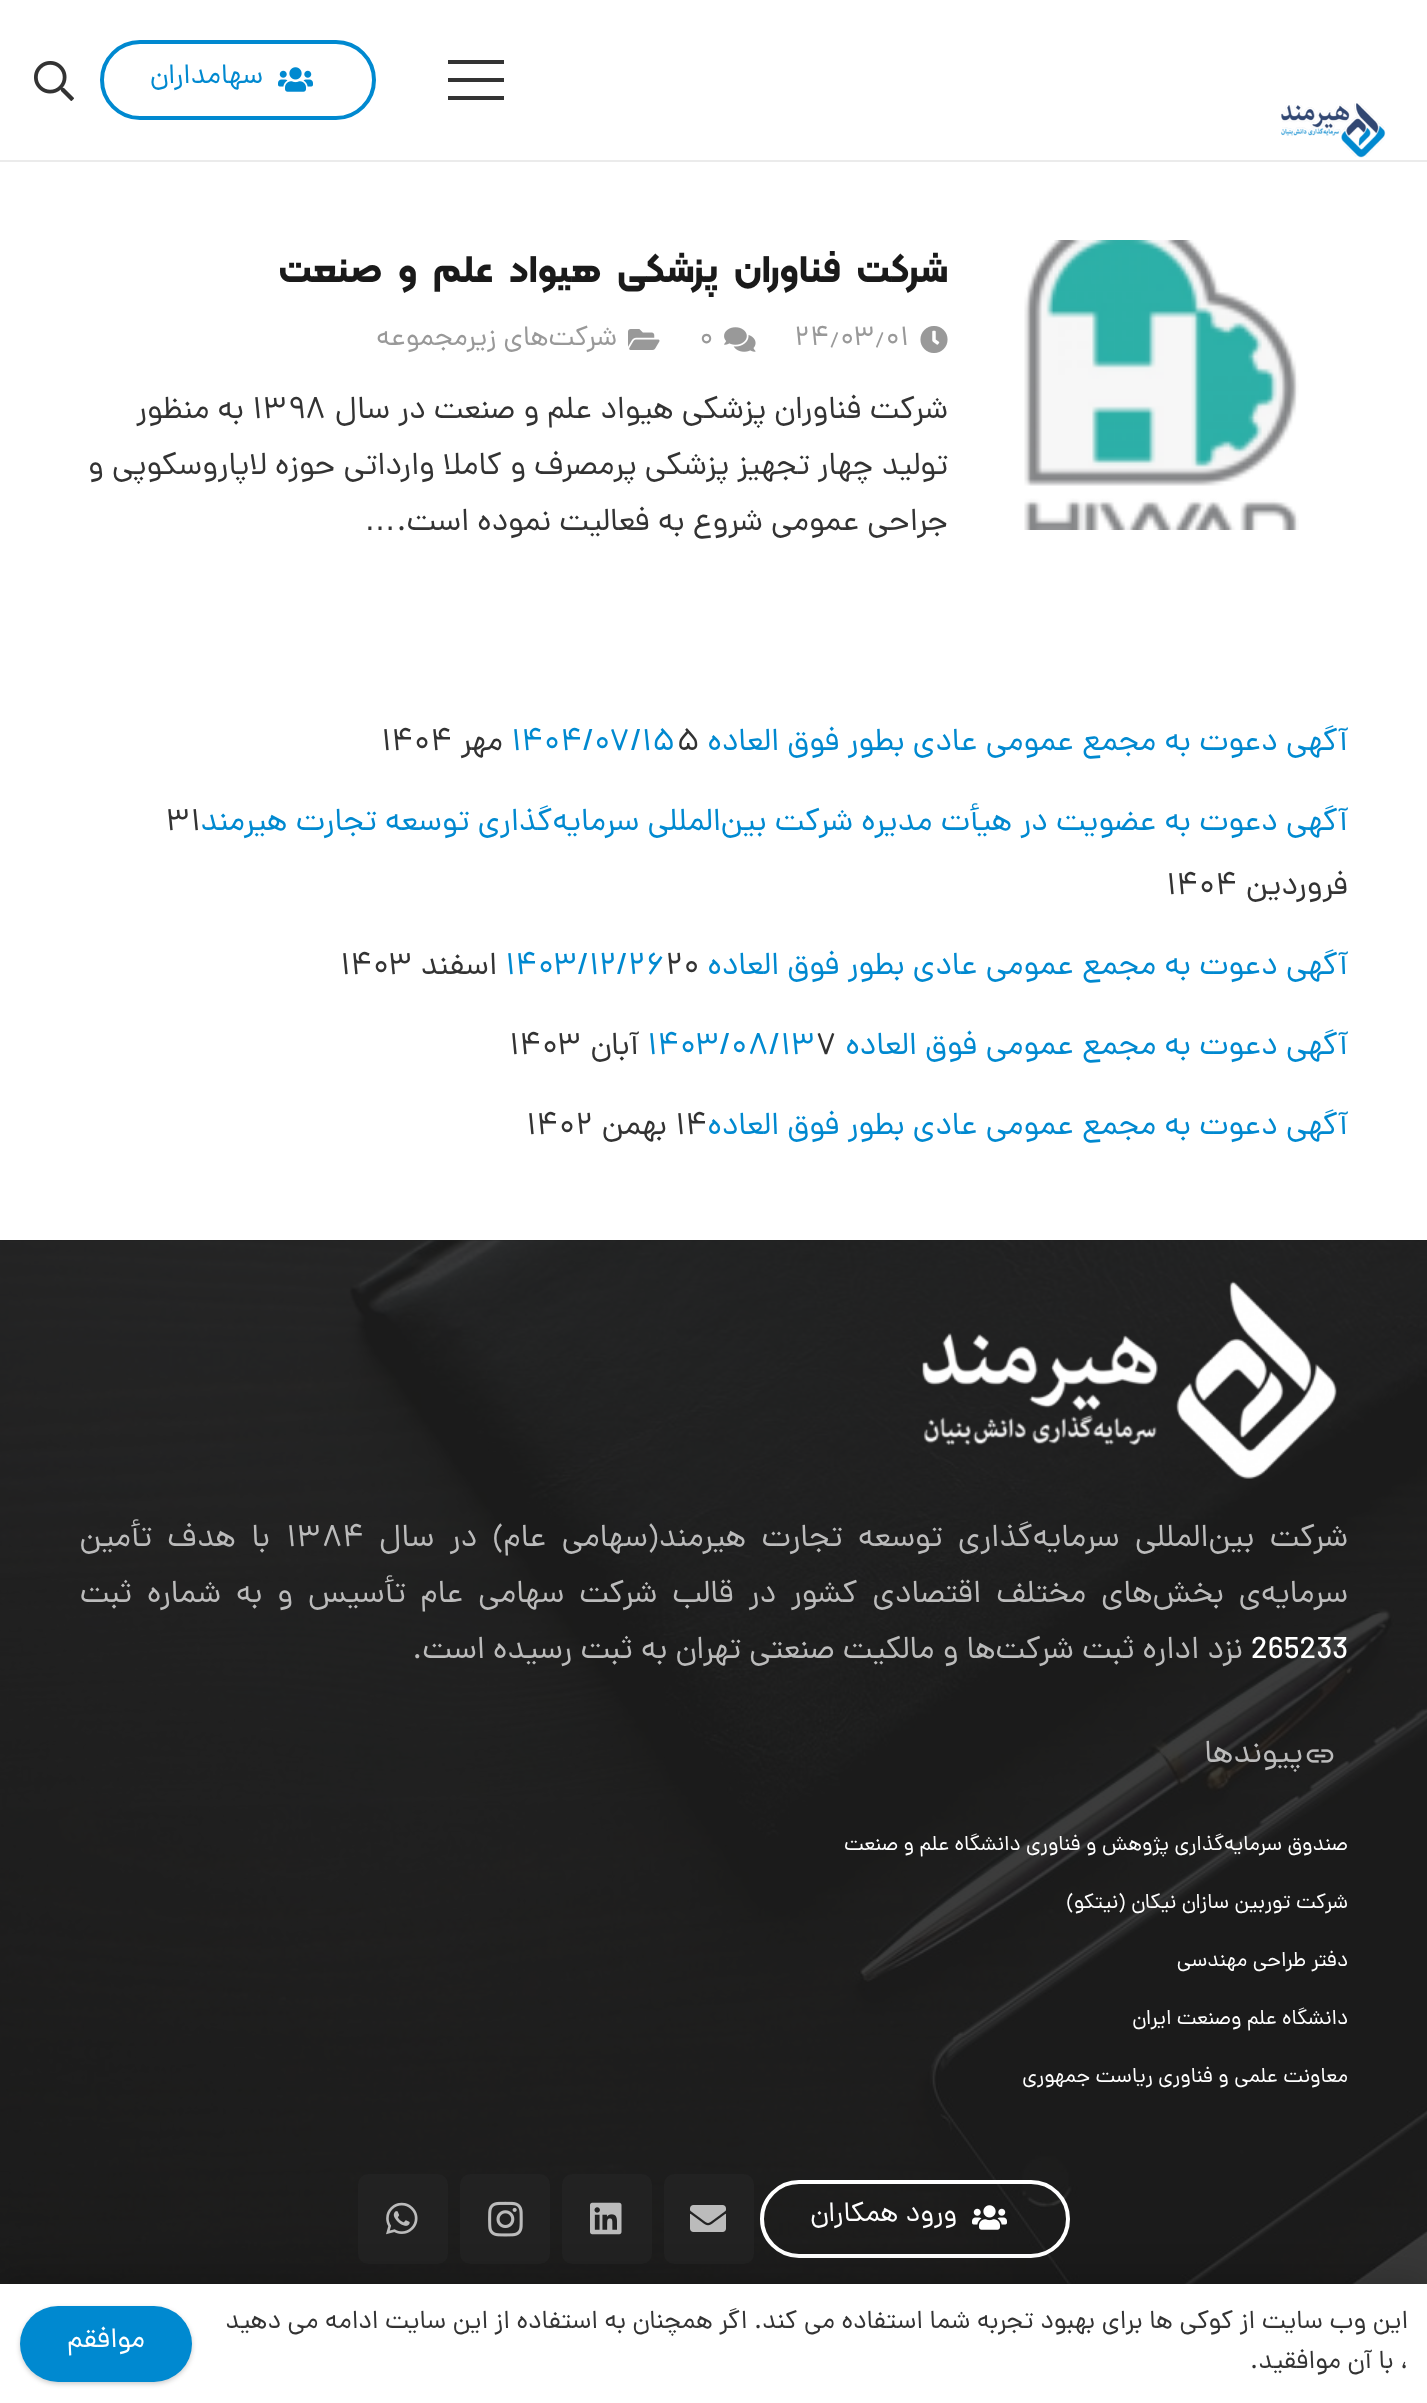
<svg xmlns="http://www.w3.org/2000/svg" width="1427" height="2403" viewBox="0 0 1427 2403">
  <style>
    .t1 { font: 28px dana; direction: rtl; fill: #0089d0; }
    .t2 { font: bold 38.4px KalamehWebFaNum; letter-spacing: -1.55px; direction: rtl; fill: #1a1a1a; }
    .t3 { font: 28px dana; fill: #999; }
    .t4 { font: 28px dana; direction: rtl; fill: #999; }
    .t5 { font: 32px dana; direction: rtl; fill: #333; }
    .t6 { font: 32px dana; fill: #333; }
    .t7 { font: 32px Liberation Sans; direction: rtl; fill: #333; }
    .t8 { font: 32px dana; direction: rtl; fill: #0089d0; }
    .t9 { font: 32px dana; fill: #0089d0; }
    .t10 { font: 32px dana; direction: rtl; fill: #bbb; }
    .t11 { font: 32px dana; fill: #bbb; }
    .t12 { font: 32px dana; fill: #fff; }
    .t13 { font: 21.3px dana; direction: rtl; fill: #fff; }
    .t14 { font: 28px dana; direction: rtl; fill: #fff; }
    .t15 { font: 26px dana; direction: rtl; fill: #333; }
  </style>
  <rect width="100%" height="100%" fill="#fff"/>
  <rect x="0" y="160" width="1427" height="2" fill="#ebebeb"/>
  <rect x="448" y="78" width="56" height="4" fill="#333"/>
  <rect x="448" y="60" width="56" height="4" fill="#333"/>
  <rect x="448" y="96" width="56" height="4" fill="#333"/>
  <image x="278" y="67" width="35" height="25" href="images/1.png"/>
  <rect x="102" y="42" width="272" height="76" rx="38" fill="none" stroke="#0089d0" stroke-width="4"/>
  <text x="263" y="83" class="t1">سهامداران</text>
  <image x="34" y="61" width="40" height="40" href="images/2.png"/>
  <image x="1281" y="103" width="105" height="55" href="images/3.png"/>
  <image x="1024" y="240" width="275" height="290" href="images/4.png"/>
  <text x="948" y="282" word-spacing="9" class="t2">شرکت فناوران پزشکی هیواد علم و صنعت</text>
  <image x="920" y="326" width="28" height="27" href="images/5.png"/>
  <text x="794" y="345" class="t3">۲۴٫۰۳٫۰۱</text>
  <image x="724" y="327" width="32" height="25" href="images/6.png"/>
  <text x="699" y="345" class="t3">۰</text>
  <image x="628" y="329" width="32" height="21" href="images/7.png"/>
  <text x="617" y="345" class="t4">شرکت‌های زیرمجموعه</text>
  <text x="948" y="418" class="t5">شرکت فناوران پزشکی هیواد علم و صنعت در سال</text>
  <text x="252" y="418" class="t6">۱۳۹۸</text>
  <text x="244" y="418" class="t5">به منظور</text>
  <text x="948" y="474" class="t5">تولید چهار تجهیز پزشکی پرمصرف و کاملا وارداتی حوزه لاپاروسکوپی و</text>
  <text x="948" y="530" class="t5">جراحی عمومی شروع به فعالیت نموده است.</text>
  <text x="396" y="530" class="t7">…</text>
  <text x="1348" y="750" class="t8">آگهی دعوت به مجمع عمومی عادی بطور فوق العاده</text>
  <text x="676" y="750" class="t6">۵</text>
  <text x="511" y="750" class="t9">۱۴۰۴/۰۷/۱۵</text>
  <text x="503" y="750" class="t5">مهر</text>
  <text x="381" y="750" class="t6">۱۴۰۴</text>
  <text x="1348" y="830" class="t8">آگهی دعوت به عضویت در هیأت مدیره شرکت بین‌المللی سرمایه‌گذاری توسعه تجارت هیرمند</text>
  <text x="165" y="830" class="t6">۳۱</text>
  <text x="1348" y="894" class="t5">فروردین</text>
  <text x="1166" y="894" class="t6">۱۴۰۴</text>
  <text x="1348" y="974" class="t8">آگهی دعوت به مجمع عمومی عادی بطور فوق العاده</text>
  <text x="665" y="974" class="t6">۲۰</text>
  <text x="505" y="974" class="t9">۱۴۰۳/۱۲/۲۶</text>
  <text x="497" y="974" class="t5">اسفند</text>
  <text x="340" y="974" class="t6">۱۴۰۳</text>
  <text x="1348" y="1054" class="t8">آگهی دعوت به مجمع عمومی فوق العاده</text>
  <text x="815" y="1054" class="t6">۷</text>
  <text x="647" y="1054" class="t9">۱۴۰۳/۰۸/۱۳</text>
  <text x="639" y="1054" class="t5">آبان</text>
  <text x="509" y="1054" class="t6">۱۴۰۳</text>
  <text x="1348" y="1134" class="t8">آگهی دعوت به مجمع عمومی عادی بطور فوق العاده</text>
  <text x="675" y="1134" class="t6">۱۴</text>
  <text x="667" y="1134" class="t5">بهمن</text>
  <text x="526" y="1134" class="t6">۱۴۰۲</text>
  <image x="0" y="1240" width="1427" height="1044" href="images/8.png"/>
  <image x="922" y="1281" width="415" height="198" href="images/9.png"/>
  <text x="1348" y="1546" word-spacing="7.25" class="t10">شرکت بین‌المللی سرمایه‌گذاری توسعه تجارت هیرمند(سهامی عام) در سال</text>
  <text x="286" y="1546" class="t11">۱۳۸۴</text>
  <text x="270" y="1546" word-spacing="7.25" class="t10">با هدف تأمین</text>
  <text x="1348" y="1602" word-spacing="6.75" class="t10">سرمایه‌ی بخش‌های مختلف اقتصادی کشور در قالب شرکت سهامی عام تأسیس و به شماره ثبت</text>
  <text x="1251" y="1658" class="t12">265233</text>
  <text x="1243" y="1658" class="t10">نزد اداره ثبت شرکت‌ها و مالکیت صنعتی تهران به ثبت رسیده است.</text>
  <image x="1306" y="1749" width="28" height="14" href="images/10.png"/>
  <text x="1303" y="1762" class="t10">پیوندها</text>
  <text x="1348" y="1850" class="t13">صندوق سرمایه‌گذاری پژوهش و فناوری دانشگاه علم و صنعت</text>
  <text x="1348" y="1908" class="t13">شرکت توربین سازان نیکان (نیتکو)</text>
  <text x="1348" y="1966" class="t13">دفتر طراحی مهندسی</text>
  <text x="1348" y="2024" class="t13">دانشگاه علم وصنعت ایران</text>
  <text x="1348" y="2082" class="t13">معاونت علمی و فناوری ریاست جمهوری</text>
  <image x="972" y="2205" width="35" height="25" href="images/11.png"/>
  <rect x="762" y="2182" width="306" height="74" rx="37" fill="none" stroke="#fff" stroke-width="4"/>
  <text x="957" y="2221" class="t14">ورود همکاران</text>
  <rect x="664" y="2174" width="90" height="90" rx="10" fill="#222"/>
  <image x="690" y="2205" width="36" height="27" href="images/12.png"/>
  <rect x="562" y="2174" width="90" height="90" rx="10" fill="#222"/>
  <image x="590" y="2202" width="32" height="33" href="images/13.png"/>
  <rect x="460" y="2174" width="90" height="90" rx="10" fill="#222"/>
  <image x="488" y="2201" width="35" height="36" href="images/14.png"/>
  <rect x="358" y="2174" width="90" height="90" rx="10" fill="#222"/>
  <image x="386" y="2202" width="32" height="33" href="images/15.png"/>
  <rect x="0" y="2274" width="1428" height="120" fill="#00000026" filter="blur(15px)"/>
  <rect x="0" y="2284" width="1427" height="119" fill="#fff"/>
  <text x="1408" y="2328" class="t15">این وب سایت از کوکی ها برای بهبود تجربه شما استفاده می کند. اگر همچنان به استفاده از این سایت ادامه می دهید</text>
  <text x="1408" y="2368" class="t15">، با آن موافقید.</text>
  <rect x="20" y="2308" width="172" height="76" rx="38" fill="#00000033" filter="blur(2.5px)"/>
  <rect x="20" y="2306" width="172" height="76" rx="38" fill="#0089d0"/>
  <text x="145" y="2347" class="t14">موافقم</text>
</svg>
